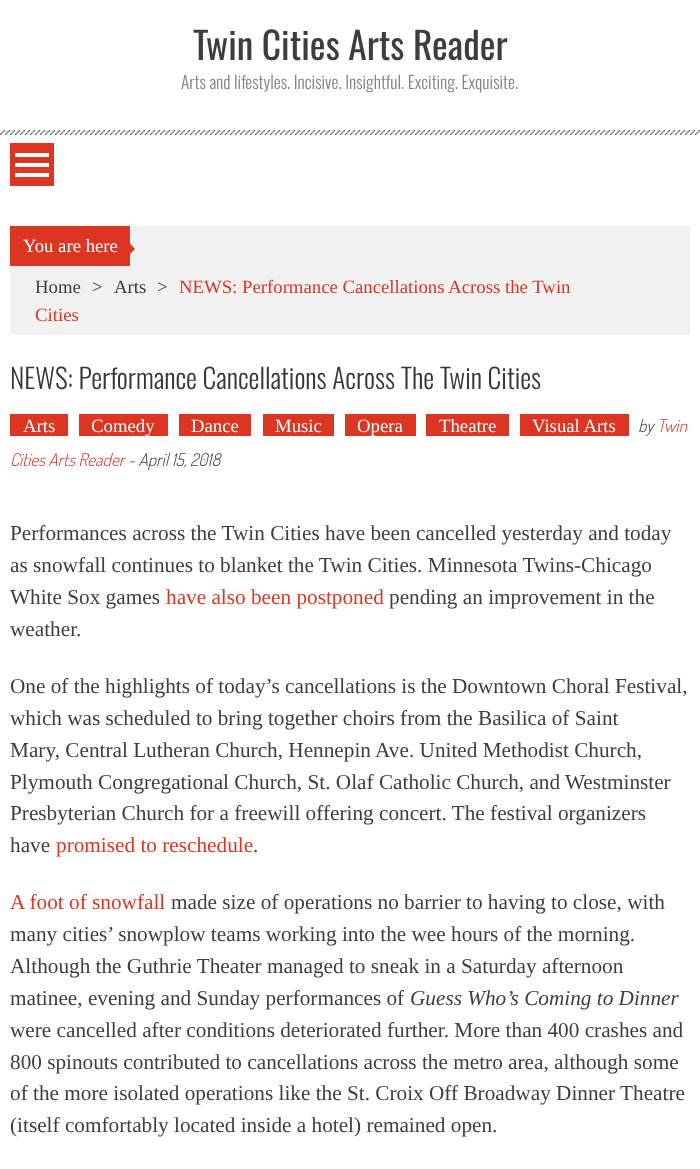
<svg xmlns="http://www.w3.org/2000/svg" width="700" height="1169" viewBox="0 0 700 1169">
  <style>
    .t1 { font: 37.5px Oswald; fill: #3d3d3d; }
    .t2 { font: 300 17.5px Oswald; fill: #818181; }
    .t3 { font: 18.75px Liberation Serif; fill: #fff; }
    .t4 { font: 18.75px Liberation Serif; fill: #3d3d3d; }
    .t5 { font: 18.75px Liberation Serif; fill: #363636; }
    .t6 { font: 18.75px Liberation Serif; fill: #dc3522; }
    .t7 { font: 300 27.5px Oswald; fill: #363636; }
    .t8 { font: italic 300 17.5px Dosis; fill: #3d3d3d; }
    .t9 { font: italic 300 17.5px Dosis; fill: #dc3522; }
    .t10 { font: 21.25px Liberation Serif; fill: #3d3d3d; }
    .t11 { font: 21.25px Liberation Serif; fill: #dc3522; }
    .t12 { font: italic 21.25px Liberation Serif; fill: #3d3d3d; }
  </style>
  <rect width="100%" height="100%" fill="#fff"/>
  <image x="0" y="130" width="700" height="5" href="images/1.png"/>
  <text x="193" y="60" class="t1">Twin Cities Arts Reader</text>
  <text x="181" y="89" class="t2">Arts and lifestyles. Incisive. Insightful. Exciting. Exquisite.</text>
  <rect x="10" y="143" width="44" height="43" fill="#dc3522"/>
  <rect x="15" y="153" width="34" height="4" fill="#fff"/>
  <rect x="15" y="163" width="34" height="4" fill="#fff"/>
  <rect x="15" y="173" width="34" height="4" fill="#fff"/>
  <rect x="10" y="226" width="680" height="109" fill="#f1f1f1"/>
  <rect x="10" y="226" width="120" height="40" fill="#dc3522"/>
  <text x="23" y="252" class="t3">You are here</text>
  <path d="M129 255V242.5L135 249Z" fill="#dc3522"/>
  <text x="35" y="293" class="t4">Home</text>
  <text x="92" y="293" class="t4">&gt;</text>
  <text x="114" y="293" class="t5">Arts</text>
  <text x="157" y="293" class="t4">&gt;</text>
  <text x="179" y="293" class="t6">NEWS: Performance Cancellations Across the Twin</text>
  <text x="35" y="321" class="t6">Cities</text>
  <text x="10" y="389" class="t7">NEWS: Performance Cancellations Across The Twin Cities</text>
  <rect x="10" y="414" width="58" height="22" fill="#dc3522"/>
  <text x="23" y="432" class="t3">Arts</text>
  <rect x="79" y="414" width="89" height="22" fill="#dc3522"/>
  <text x="91" y="432" class="t3">Comedy</text>
  <rect x="179" y="414" width="72" height="22" fill="#dc3522"/>
  <text x="191" y="432" class="t3">Dance</text>
  <rect x="263" y="414" width="71" height="22" fill="#dc3522"/>
  <text x="275" y="432" class="t3">Music</text>
  <rect x="345" y="414" width="71" height="22" fill="#dc3522"/>
  <text x="357" y="432" class="t3">Opera</text>
  <rect x="426" y="414" width="83" height="22" fill="#dc3522"/>
  <text x="439" y="432" class="t3">Theatre</text>
  <rect x="520" y="414" width="109" height="22" fill="#dc3522"/>
  <text x="532" y="432" class="t3">Visual Arts</text>
  <text x="638" y="432" class="t8">by</text>
  <text x="657" y="432" class="t9">Twin</text>
  <text x="10" y="466" class="t9">Cities Arts Reader</text>
  <text x="128" y="466" class="t8">- April 15, 2018</text>
  <text x="10" y="540" class="t10">Performances across the Twin Cities have been cancelled yesterday and today</text>
  <text x="10" y="572" class="t10">as snowfall continues to blanket the Twin Cities. Minnesota Twins-Chicago</text>
  <text x="10" y="604" class="t10">White Sox games</text>
  <text x="166" y="604" class="t11">have also been postponed</text>
  <text x="389" y="604" class="t10">pending an improvement in the</text>
  <text x="10" y="636" class="t10">weather.</text>
  <text x="10" y="693" class="t10">One of the highlights of today’s cancellations is the Downtown Choral Festival,</text>
  <text x="10" y="725" class="t10">which was scheduled to bring together choirs from the Basilica of Saint</text>
  <text x="10" y="757" class="t10">Mary, Central Lutheran Church, Hennepin Ave. United Methodist Church,</text>
  <text x="10" y="789" class="t10">Plymouth Congregational Church, St. Olaf Catholic Church, and Westminster</text>
  <text x="10" y="820" class="t10">Presbyterian Church for a freewill offering concert. The festival organizers</text>
  <text x="10" y="852" class="t10">have</text>
  <text x="56" y="852" class="t11">promised to reschedule</text>
  <text x="253" y="852" class="t10">.</text>
  <text x="10" y="909" class="t11">A foot of snowfall</text>
  <text x="171" y="909" class="t10">made size of operations no barrier to having to close, with</text>
  <text x="10" y="941" class="t10">many cities’ snowplow teams working into the wee hours of the morning.</text>
  <text x="10" y="973" class="t10">Although the Guthrie Theater managed to sneak in a Saturday afternoon</text>
  <text x="10" y="1005" class="t10">matinee, evening and Sunday performances of</text>
  <text x="410" y="1005" class="t12">Guess Who’s Coming to Dinner</text>
  <text x="10" y="1037" class="t10">were cancelled after conditions deteriorated further. More than 400 crashes and</text>
  <text x="10" y="1069" class="t10">800 spinouts contributed to cancellations across the metro area, although some</text>
  <text x="10" y="1100" class="t10">of the more isolated operations like the St. Croix Off Broadway Dinner Theatre</text>
  <text x="10" y="1132" class="t10">(itself comfortably located inside a hotel) remained open.</text>
</svg>
